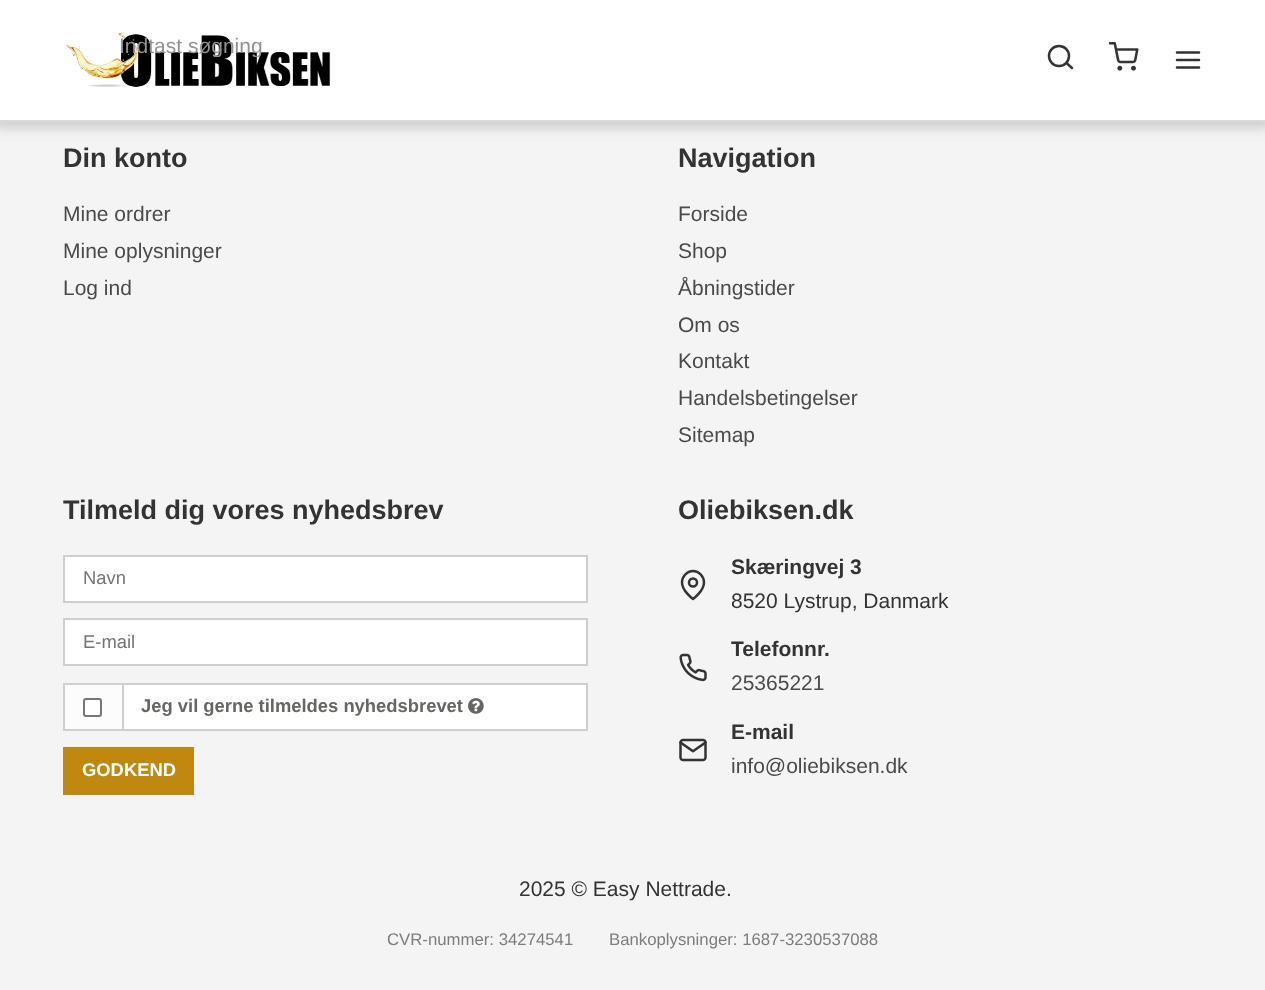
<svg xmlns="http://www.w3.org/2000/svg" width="1265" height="990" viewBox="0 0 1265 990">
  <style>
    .t1 { font: 21px Liberation Sans; fill: #939393; }
    .t2 { font: bold 27px Liberation Sans; fill: #333; }
    .t3 { font: 21px Liberation Sans; fill: #4a4a4a; }
    .t4 { font: 18.4px Liberation Sans; fill: #757575; }
    .t5 { font: bold 18.4px Liberation Sans; fill: #656764; }
    .t6 { font: bold 18.4px Liberation Sans; fill: #fff; }
    .t7 { font: bold 21px Liberation Sans; fill: #333; }
    .t8 { font: 21px Liberation Sans; fill: #333; }
    .t9 { font: 16.75px Liberation Sans; fill: #7d7d7d; }
  </style>
  <defs>
    <clipPath id="clip1"><rect x="119" y="33" width="1051" height="24"/></clipPath>
  </defs>
  <rect width="100%" height="100%" fill="#f4f4f4"/>
  <rect x="-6" y="-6" width="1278" height="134" fill="#ccc" filter="blur(6px)"/>
  <rect x="0" y="0" width="1265" height="120" fill="#fff"/>
  <rect x="0" y="120" width="1265" height="2" fill="#d9d9d9"/>
  <image x="66" y="32" width="265" height="55" href="images/1.png"/>
  <g clip-path="url(#clip1)">
    <text x="119" y="53" class="t1">Indtast søgning</text>
  </g>
  <circle cx="1059" cy="56" r="10" fill="none" stroke="#333" stroke-width="2.5"/>
  <path d="M1072 68L1066.5 63" fill="none" stroke="#333" stroke-width="2.5" stroke-linecap="round" stroke-linejoin="round"/>
  <image x="1109" y="42" width="30" height="29" href="images/2.png"/>
  <path d="M1177 60H1199M1177 52.5H1199M1177 67.5H1199" fill="none" stroke="#333" stroke-width="2.5" stroke-linecap="round" stroke-linejoin="round"/>
  <text x="63" y="167" class="t2">Din konto</text>
  <text x="63" y="221" class="t3">Mine ordrer</text>
  <text x="63" y="258" class="t3">Mine oplysninger</text>
  <text x="63" y="295" class="t3">Log ind</text>
  <text x="678" y="167" class="t2">Navigation</text>
  <text x="678" y="221" class="t3">Forside</text>
  <text x="678" y="258" class="t3">Shop</text>
  <text x="678" y="295" class="t3">Åbningstider</text>
  <text x="678" y="332" class="t3">Om os</text>
  <text x="678" y="368" class="t3">Kontakt</text>
  <text x="678" y="405" class="t3">Handelsbetingelser</text>
  <text x="678" y="442" class="t3">Sitemap</text>
  <text x="63" y="519" class="t2">Tilmeld dig vores nyhedsbrev</text>
  <rect x="64" y="556" width="523" height="46" fill="#fff" stroke="#cfcfcf" stroke-width="2"/>
  <text x="83" y="584" class="t4">Navn</text>
  <rect x="64" y="619" width="523" height="46" fill="#fff" stroke="#cfcfcf" stroke-width="2"/>
  <text x="83" y="648" class="t4">E-mail</text>
  <rect x="65" y="685" width="57" height="44" fill="#fcfcfc"/>
  <rect x="63" y="683" width="59" height="2" fill="#cfcfcf"/>
  <rect x="63" y="729" width="59" height="2" fill="#cfcfcf"/>
  <rect x="63" y="683" width="2" height="48" fill="#cfcfcf"/>
  <rect x="84" y="699" width="17" height="17" rx="2" fill="#fff" stroke="#767676" stroke-width="2"/>
  <rect x="123" y="684" width="464" height="46" fill="#fff" stroke="#cfcfcf" stroke-width="2"/>
  <text x="141" y="712" class="t5">Jeg vil gerne tilmeldes nyhedsbrevet</text>
  <image x="468" y="698" width="16" height="16" href="images/3.png"/>
  <rect x="63" y="747" width="131" height="48" fill="#c1880f"/>
  <text x="82" y="776" class="t6">GODKEND</text>
  <text x="678" y="519" class="t2">Oliebiksen.dk</text>
  <path d="M704 582.5C704 591 693 599 693 599C693 599 682 591 682 582.5C682 576.5 687 571 693 571C699 571 704 576.5 704 582.5Z" fill="none" stroke="#333" stroke-width="2.5" stroke-linecap="round" stroke-linejoin="round"/>
  <circle cx="693" cy="582.5" r="4" fill="none" stroke="#333" stroke-width="2.5"/>
  <text x="731" y="574" class="t7">Skæringvej 3</text>
  <text x="731" y="608" class="t8">8520 Lystrup, Danmark</text>
  <image x="679" y="653" width="28" height="29" href="images/4.png"/>
  <text x="731" y="656" class="t7">Telefonnr.</text>
  <text x="731" y="690" class="t3">25365221</text>
  <image x="679" y="738" width="28" height="24" href="images/5.png"/>
  <text x="731" y="739" class="t7">E-mail</text>
  <text x="731" y="773" class="t3">info@oliebiksen.dk</text>
  <text x="519" y="896" class="t8">2025 © Easy Nettrade.</text>
  <text x="387" y="945" class="t9">CVR-nummer: 34274541</text>
  <text x="609" y="945" class="t9">Bankoplysninger: 1687-3230537088</text>
</svg>
